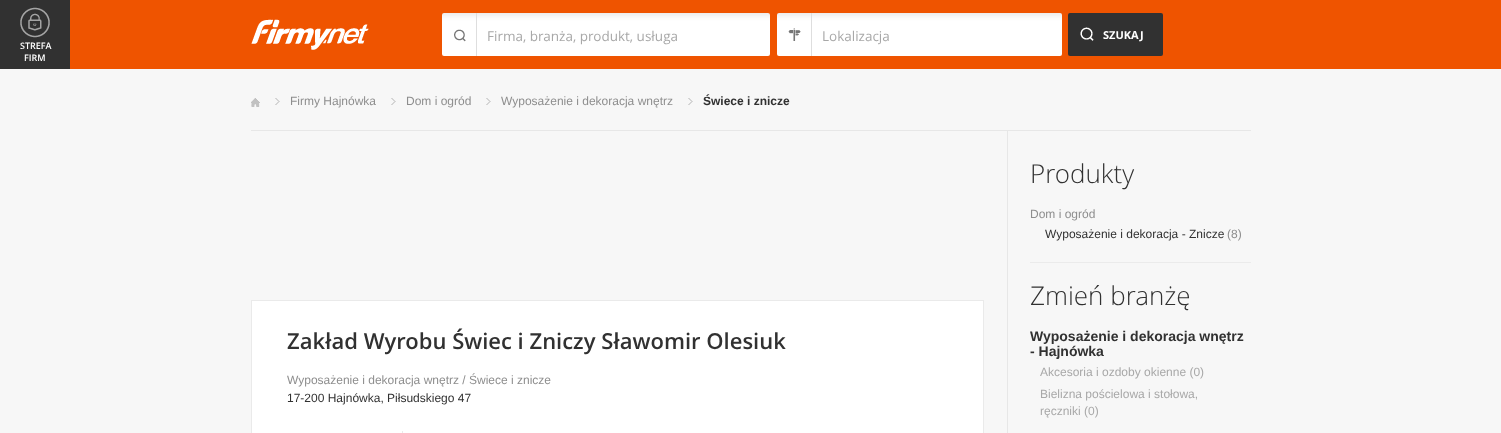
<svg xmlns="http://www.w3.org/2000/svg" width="1501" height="433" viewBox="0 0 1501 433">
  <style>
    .t1 { font: 13.5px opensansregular; fill: #a8a8a8; }
    .t2 { font: bold 11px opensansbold; fill: #fff; }
    .t3 { font: 600 9px Open Sans; fill: #fff; }
    .t4 { font: 12px Liberation Sans; fill: #8e8e8e; }
    .t5 { font: bold 12px Liberation Sans; fill: #313131; }
    .t6 { font: 600 22px Open Sans; fill: #313131; }
    .t7 { font: 12px Liberation Sans; fill: #313131; }
    .t8 { font: 300 26px Open Sans; fill: #313131; }
    .t9 { font: bold 14px Liberation Sans; fill: #313131; }
    .t10 { font: 12px Liberation Sans; fill: #a8a8a8; }
  </style>
  <rect width="100%" height="100%" fill="#f7f7f7"/>
  <rect x="70" y="0" width="1431" height="69" fill="#ef5400"/>
  <image x="251" y="19" width="118" height="31" href="images/1.png"/>
  <image x="442" y="13" width="328" height="43" href="images/3.png"/>
  <image x="454" y="29" width="12" height="13" href="images/2.png"/>
  <rect x="476" y="13" width="1" height="43" fill="#dedede"/>
  <text x="487" y="41" class="t1">Firma, branża, produkt, usługa</text>
  <image x="777" y="13" width="285" height="43" href="images/5.png"/>
  <image x="788" y="28" width="13" height="13" href="images/4.png"/>
  <rect x="811" y="13" width="1" height="43" fill="#dedede"/>
  <text x="822" y="41" class="t1">Lokalizacja</text>
  <rect x="1068" y="13" width="95" height="43" rx="2" fill="#313131"/>
  <image x="1080" y="27" width="14" height="14" href="images/6.png"/>
  <text x="1103" y="39" class="t2">SZUKAJ</text>
  <rect x="0" y="0" width="70" height="69" fill="#313131"/>
  <image x="20" y="7" width="30" height="31" href="images/7.png"/>
  <text x="20" y="49" class="t3">STREFA</text>
  <text x="24" y="61" class="t3">FIRM</text>
  <rect x="251" y="130" width="1000" height="1" fill="#e7e7e7"/>
  <image x="251" y="98" width="9" height="9" href="images/8.png"/>
  <image x="275" y="98" width="5" height="7" href="images/9.png"/>
  <text x="290" y="105" class="t4">Firmy Hajnówka</text>
  <image x="391" y="98" width="5" height="7" href="images/9.png"/>
  <text x="406" y="105" class="t4">Dom i ogród</text>
  <image x="486" y="98" width="5" height="7" href="images/9.png"/>
  <text x="501" y="105" class="t4">Wyposażenie i dekoracja wnętrz</text>
  <image x="688" y="98" width="5" height="7" href="images/9.png"/>
  <text x="703" y="105" class="t5">Świece i znicze</text>
  <rect x="1007" y="131" width="1" height="302" fill="#e7e7e7"/>
  <rect x="251.5" y="300.5" width="732" height="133" fill="none" stroke="#eaeaea"/>
  <rect x="252" y="301" width="731" height="132" fill="#fff"/>
  <text x="287" y="349" class="t6">Zakład Wyrobu Świec i Zniczy Sławomir Olesiuk</text>
  <text x="287" y="384" class="t4">Wyposażenie i dekoracja wnętrz / Świece i znicze</text>
  <text x="287" y="402" class="t7">17-200 Hajnówka, Piłsudskiego 47</text>
  <rect x="402" y="431" width="1" height="2" fill="#eaeaea"/>
  <text x="1030" y="183" class="t8">Produkty</text>
  <text x="1030" y="218" class="t4">Dom i ogród</text>
  <text x="1045" y="238" class="t7">Wyposażenie i dekoracja - Znicze</text>
  <text x="1227" y="238" class="t4">(8)</text>
  <rect x="1030" y="262" width="221" height="1" fill="#ebebeb"/>
  <text x="1030" y="305" class="t8">Zmień branżę</text>
  <text x="1030" y="341" class="t9">Wyposażenie i dekoracja wnętrz</text>
  <text x="1030" y="356" class="t9">- Hajnówka</text>
  <text x="1040" y="376" class="t10">Akcesoria i ozdoby okienne (0)</text>
  <text x="1040" y="398" class="t10">Bielizna pościelowa i stołowa,</text>
  <text x="1040" y="415" class="t10">ręczniki (0)</text>
</svg>
